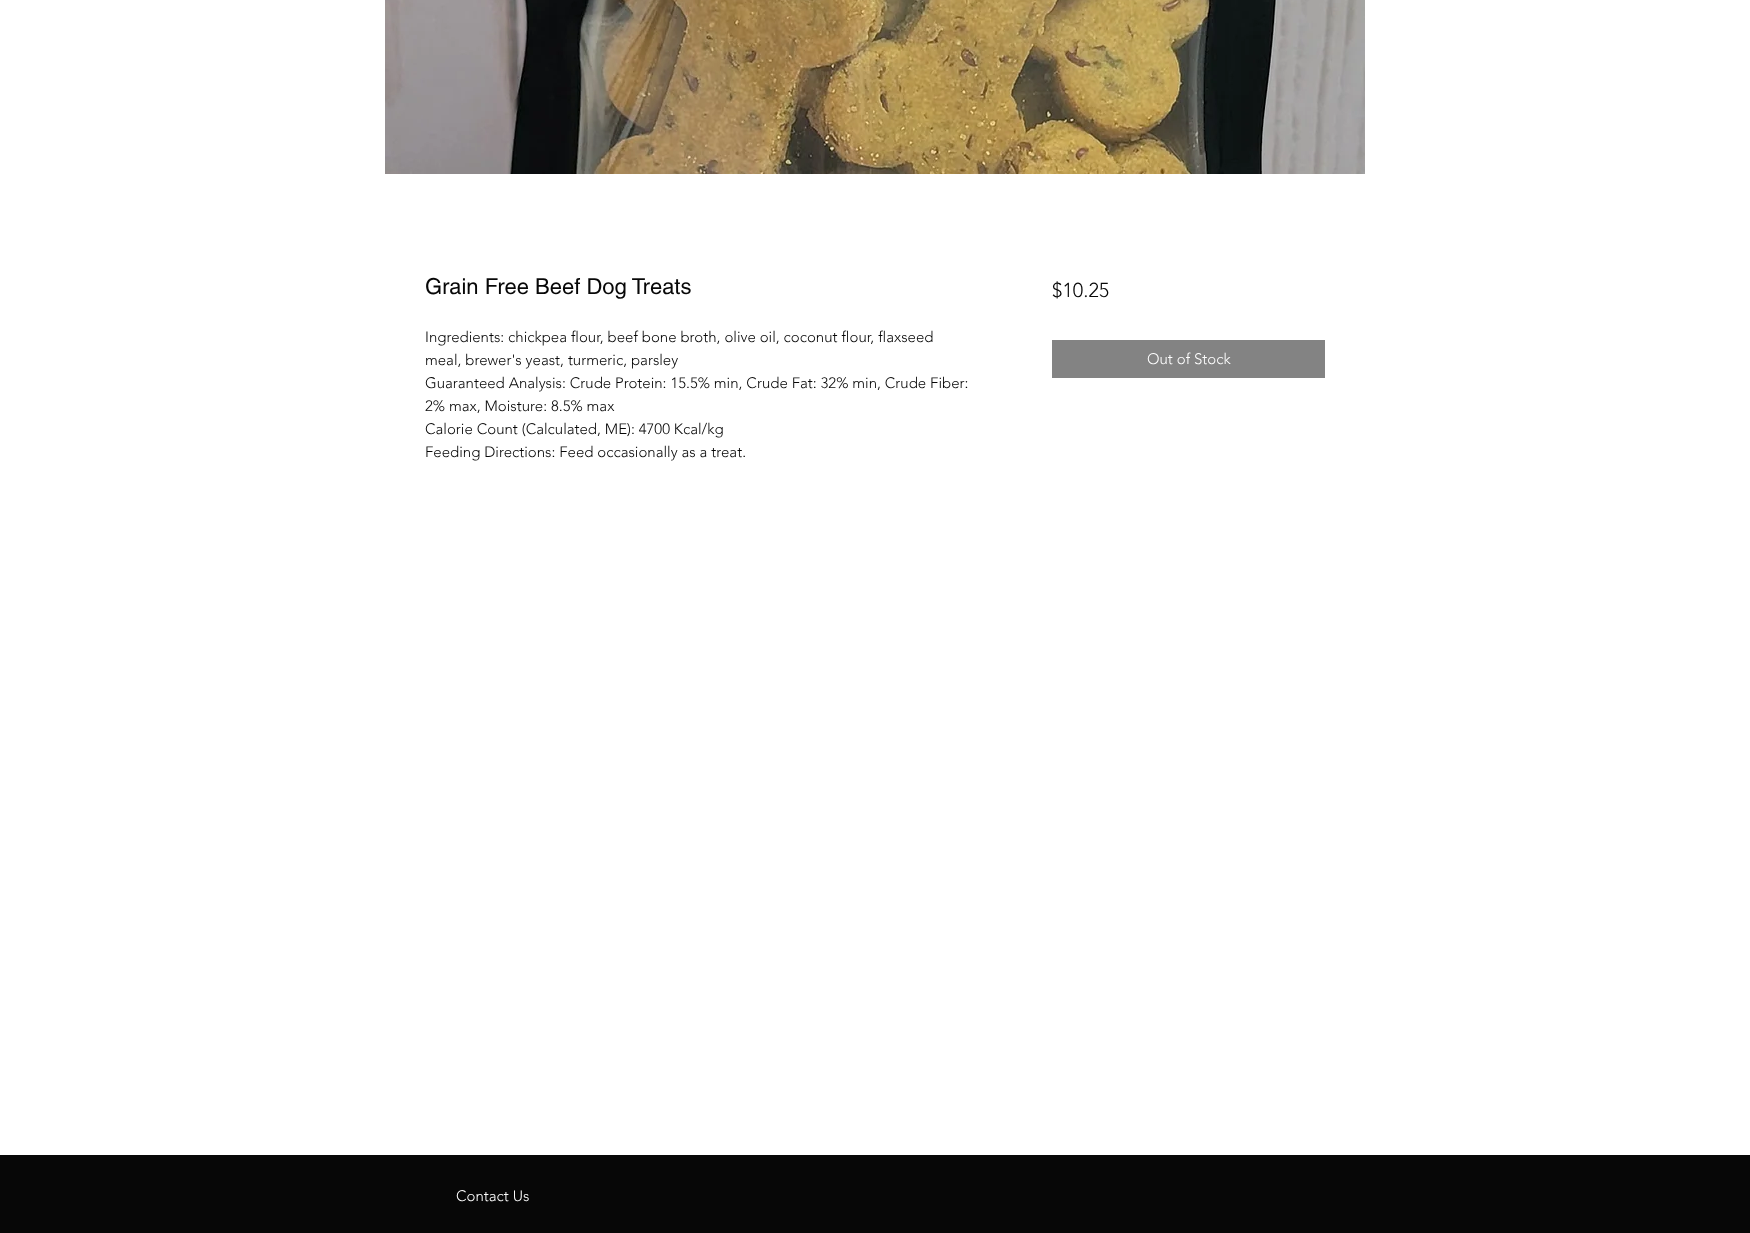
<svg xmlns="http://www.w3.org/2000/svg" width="1750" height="1233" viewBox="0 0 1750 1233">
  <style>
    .t1 { font: 22px helvetica; fill: #070707; }
    .t2 { font: 300 15px 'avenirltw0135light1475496'; fill: #070707; }
    .t3 { font: 300 20px 'avenirltw0135light1475496'; fill: #070707; }
    .t4 { font: 300 15px 'avenirltw0135light1475496'; fill: #fff; }
  </style>
  <rect width="100%" height="100%" fill="#fff"/>
  <image x="385" y="0" width="980" height="174" href="images/1.png"/>
  <text x="425" y="294" class="t1">Grain Free Beef Dog Treats</text>
  <text x="425" y="342" class="t2">Ingredients: chickpea flour, beef bone broth, olive oil, coconut flour, flaxseed</text>
  <text x="425" y="365" class="t2">meal, brewer's yeast, turmeric, parsley</text>
  <text x="425" y="388" class="t2">Guaranteed Analysis: Crude Protein: 15.5% min, Crude Fat: 32% min, Crude Fiber:</text>
  <text x="425" y="411" class="t2">2% max, Moisture: 8.5% max</text>
  <text x="425" y="434" class="t2">Calorie Count (Calculated, ME): 4700 Kcal/kg</text>
  <text x="425" y="457" class="t2">Feeding Directions: Feed occasionally as a treat.</text>
  <text x="1052" y="297" class="t3">$10.25</text>
  <rect x="1052" y="340" width="273" height="38" fill="#838383"/>
  <text x="1147" y="364" class="t4">Out of Stock</text>
  <rect x="0" y="1155" width="1750" height="78" fill="#070707"/>
  <text x="456" y="1201" class="t4">Contact Us</text>
</svg>
